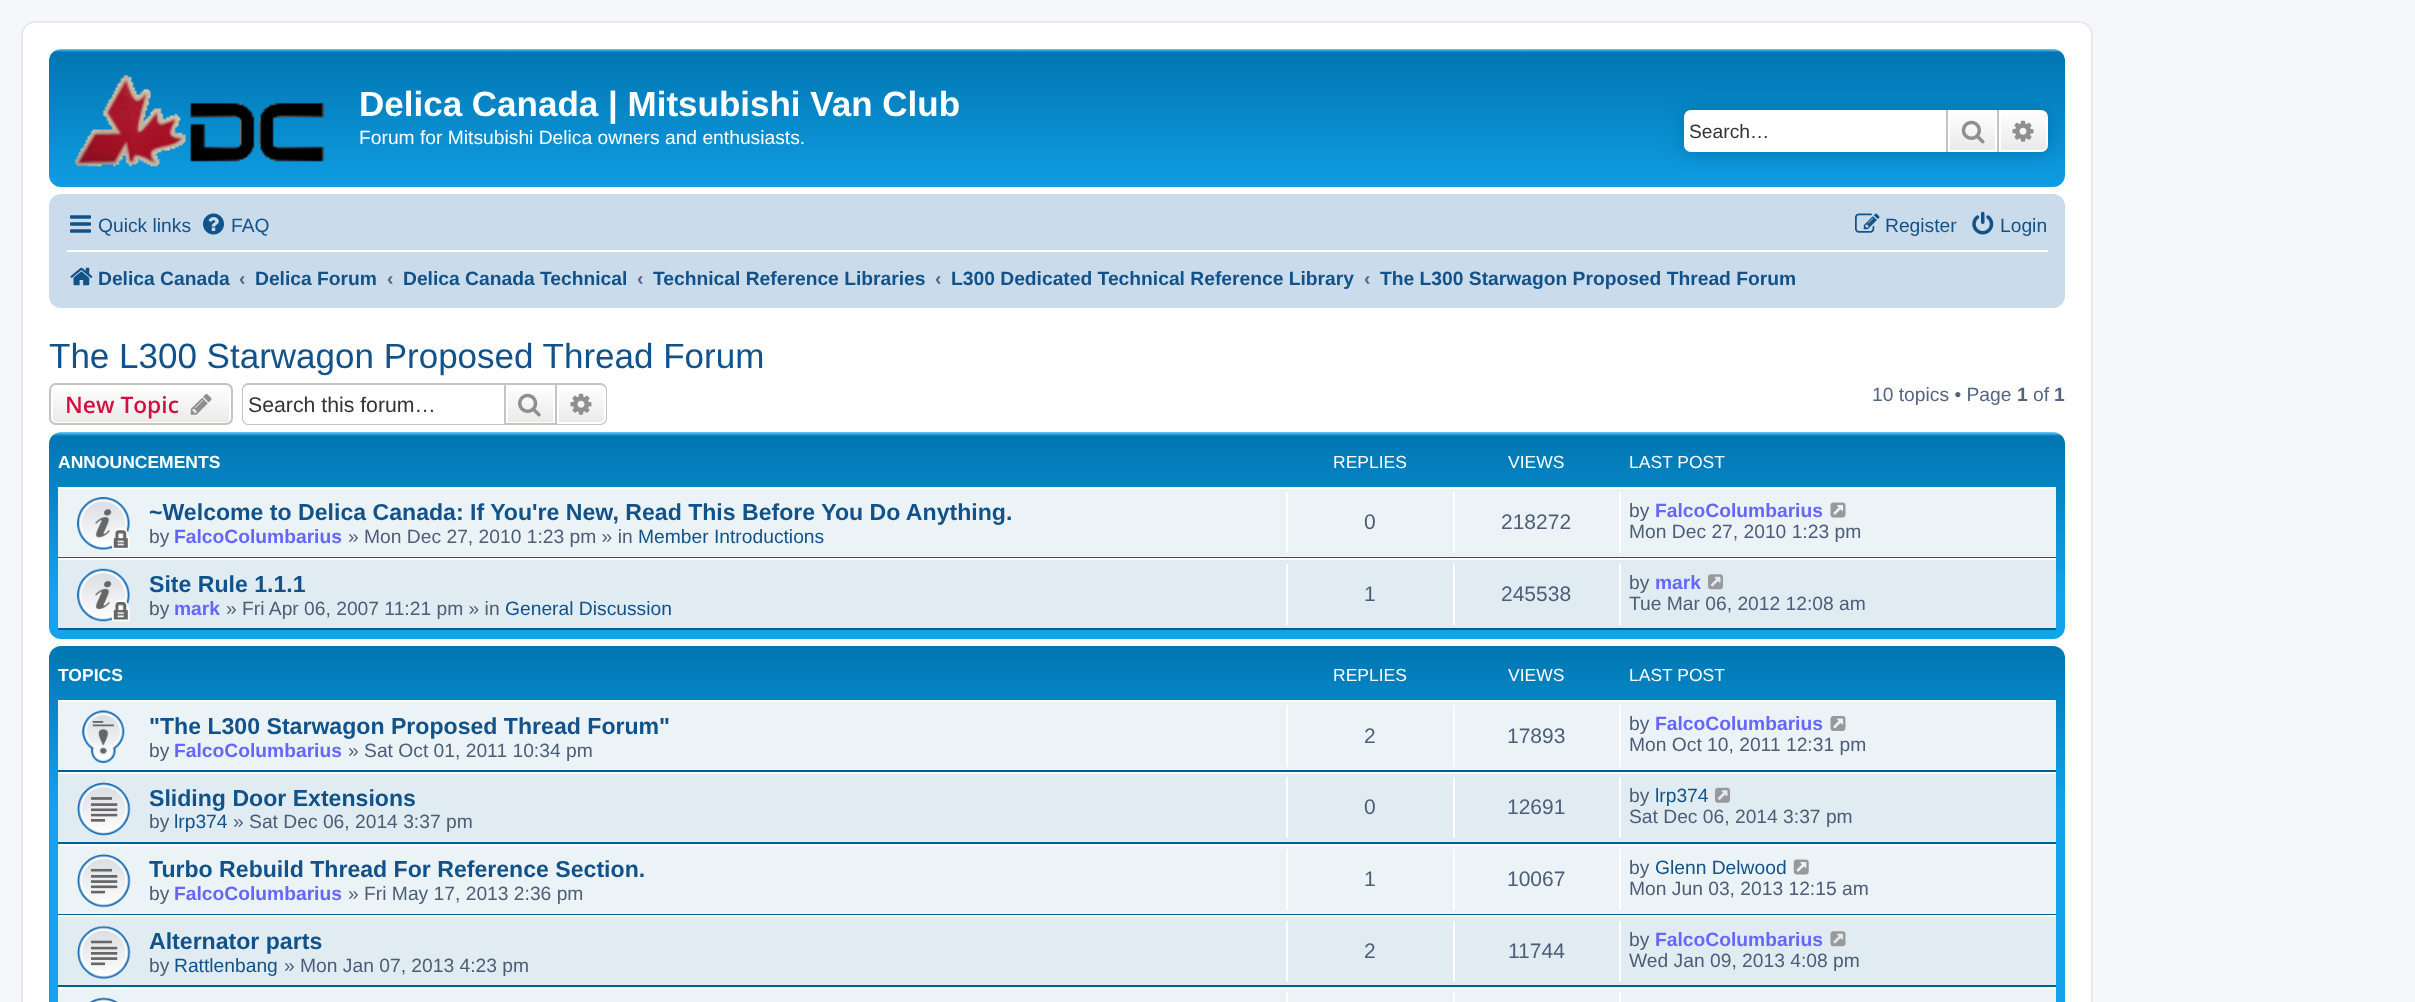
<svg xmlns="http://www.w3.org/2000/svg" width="2415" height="1002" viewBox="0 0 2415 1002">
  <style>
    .t1 { font: bold 35px Liberation Sans; fill: #fff; }
    .t2 { font: 19.25px Liberation Sans; fill: #fff; }
    .t3 { font: 19.25px Liberation Sans; fill: #333; }
    .t4 { font: 19.25px Liberation Sans; fill: #105289; }
    .t5 { font: bold 19.25px Liberation Sans; fill: #105289; }
    .t6 { font: bold 19.25px Liberation Sans; fill: #536482; }
    .t7 { font: 35px Liberation Sans; fill: #105289; }
    .t8 { font: 600 22.75px Open Sans; fill: #d31141; }
    .t9 { font: 21.25px Liberation Sans; fill: #333; }
    .t10 { font: 19.25px Liberation Sans; fill: #536482; }
    .t11 { font: bold 17.5px Liberation Sans; fill: #fff; }
    .t12 { font: 17.5px Liberation Sans; fill: #fff; }
    .t13 { font: bold 23.1px Liberation Sans; fill: #105289; }
    .t14 { font: 19.25px Liberation Sans; fill: #4c5d77; }
    .t15 { font: bold 19.25px Liberation Sans; fill: #66f; }
    .t16 { font: 21px Liberation Sans; fill: #4c5d77; }
  </style>
  <defs>
    <linearGradient id="g1" gradientUnits="userSpaceOnUse" x1="1057" y1="49" x2="1057" y2="210"><stop offset="0" stop-color="#6aceff"/><stop offset="0.02" stop-color="#0076b1"/><stop offset="1" stop-color="#12a3eb"/></linearGradient>
    <linearGradient id="g2" gradientUnits="userSpaceOnUse" x1="1972" y1="110" x2="1972" y2="152"><stop offset="0" stop-color="#fff"/><stop offset="1" stop-color="#e9e9e9"/></linearGradient>
    <linearGradient id="g3" gradientUnits="userSpaceOnUse" x1="2023" y1="110" x2="2023" y2="152"><stop offset="0" stop-color="#fff"/><stop offset="1" stop-color="#e9e9e9"/></linearGradient>
    <clipPath id="clip1"><rect x="49" y="383" width="184" height="42" rx="7"/></clipPath>
    <linearGradient id="g4" gradientUnits="userSpaceOnUse" x1="141" y1="385" x2="141" y2="424"><stop offset="0" stop-color="#fff"/><stop offset="1" stop-color="#e9e9e9"/></linearGradient>
    <linearGradient id="g5" gradientUnits="userSpaceOnUse" x1="530" y1="385" x2="530" y2="424"><stop offset="0" stop-color="#fff"/><stop offset="1" stop-color="#e9e9e9"/></linearGradient>
    <linearGradient id="g6" gradientUnits="userSpaceOnUse" x1="581" y1="385" x2="581" y2="424"><stop offset="0" stop-color="#fff"/><stop offset="1" stop-color="#e9e9e9"/></linearGradient>
    <linearGradient id="g7" gradientUnits="userSpaceOnUse" x1="1057" y1="432" x2="1057" y2="639"><stop offset="0" stop-color="#6aceff"/><stop offset="0.02" stop-color="#0076b1"/><stop offset="0.78" stop-color="#12a3eb"/><stop offset="1" stop-color="#12a3eb"/></linearGradient>
    <linearGradient id="g8" gradientUnits="userSpaceOnUse" x1="1057" y1="646" x2="1057" y2="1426"><stop offset="0" stop-color="#6aceff"/><stop offset="0" stop-color="#0076b1"/><stop offset="0.21" stop-color="#12a3eb"/><stop offset="1" stop-color="#12a3eb"/></linearGradient>
  </defs>
  <rect width="100%" height="100%" fill="#f5f7fa"/>
  <rect x="22" y="22" width="2070" height="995" rx="13" fill="#fff" stroke="#e6e9ed" stroke-width="2"/>
  <rect x="49" y="49" width="2016" height="138" rx="12" fill="url(#g1)"/>
  <image x="75" y="75" width="250" height="92" href="images/1.png"/>
  <text x="359" y="116" class="t1">Delica Canada | Mitsubishi Van Club</text>
  <text x="359" y="144" class="t2">Forum for Mitsubishi Delica owners and enthusiasts.</text>
  <rect x="1684" y="110" width="364" height="42" rx="7" fill="#0075b0" filter="blur(9px)"/>
  <path d="M1691 110H1946V152H1691C1687 152 1684 149 1684 145V117C1684 113 1687 110 1691 110Z" fill="#fff"/>
  <text x="1689" y="138" class="t3">Search…</text>
  <rect x="1950" y="112" width="45" height="38" fill="url(#g2)"/>
  <rect x="1949" y="111" width="47" height="40" fill="none" stroke="#fff" stroke-width="2"/>
  <rect x="1997" y="110" width="2" height="42" fill="#c7c3bf"/>
  <rect x="1946" y="110" width="2" height="42" fill="#c7c3bf"/>
  <image x="1961" y="120" width="24" height="24" href="images/2.png"/>
  <path d="M2000 111H2041C2044.5 111 2047 113.5 2047 117V145C2047 148.5 2044.5 151 2041 151H2000Z" fill="url(#g3)" stroke="#fff" stroke-width="2"/>
  <image x="2012" y="120" width="22" height="22" href="images/3.png"/>
  <rect x="49" y="194" width="2016" height="114" rx="12" fill="#cadceb"/>
  <image x="70" y="215" width="21" height="18" href="images/4.png"/>
  <text x="98" y="232" class="t4">Quick links</text>
  <image x="203" y="213" width="21" height="22" href="images/5.png"/>
  <text x="231" y="232" class="t4">FAQ</text>
  <image x="1855" y="213" width="25" height="20" href="images/6.png"/>
  <text x="1885" y="232" class="t4">Register</text>
  <image x="1972" y="211" width="22" height="24" href="images/7.png"/>
  <text x="2000" y="232" class="t4">Login</text>
  <rect x="67" y="250" width="1981" height="2" fill="#fff"/>
  <image x="70" y="267" width="23" height="19" href="images/8.png"/>
  <text x="98" y="285" class="t5">Delica Canada</text>
  <text x="239" y="285" class="t6">‹</text>
  <text x="255" y="285" class="t5">Delica Forum</text>
  <text x="387" y="285" class="t6">‹</text>
  <text x="403" y="285" class="t5">Delica Canada Technical</text>
  <text x="637" y="285" class="t6">‹</text>
  <text x="653" y="285" class="t5">Technical Reference Libraries</text>
  <text x="935" y="285" class="t6">‹</text>
  <text x="951" y="285" class="t5">L300 Dedicated Technical Reference Library</text>
  <text x="1364" y="285" class="t6">‹</text>
  <text x="1380" y="285" class="t5">The L300 Starwagon Proposed Thread Forum</text>
  <text x="49" y="368" class="t7">The L300 Starwagon Proposed Thread Forum</text>
  <g clip-path="url(#clip1)">
    <rect x="49" y="385" width="184" height="39" fill="url(#g4)"/>
  </g>
  <rect x="52" y="386" width="178" height="37" rx="4" fill="none" stroke="#fff" stroke-width="2"/>
  <rect x="50" y="384" width="182" height="40" rx="6" fill="none" stroke="#c7c3bf" stroke-width="2"/>
  <text x="65" y="413" class="t8">New Topic</text>
  <image x="190" y="394" width="22" height="21" href="images/9.png"/>
  <path d="M248 383H504V425H248C245 425 242 422 242 418V390C242 386 245 383 248 383ZM248 385H504V424H248C246 424 243 421 243 418V390C243 387 246 385 248 385Z" fill="#c7c3bf" fill-rule="evenodd"/>
  <text x="248" y="412" class="t9">Search this forum…</text>
  <rect x="508" y="389" width="45" height="33" fill="url(#g5)"/>
  <rect x="505" y="384" width="51" height="40" fill="none" stroke="#c7c3bf" stroke-width="2"/>
  <image x="518" y="393" width="23" height="24" href="images/10.png"/>
  <path d="M558 386H601C603 386 605 388 605 390V419C605 421 603 423 601 423H558Z" fill="url(#g6)" stroke="#fff" stroke-width="2"/>
  <path d="M556 383H600C604 383 607 386 607 390V418C607 422 604 425 600 425H556ZM556 385H600C603 385 606 387 606 390V418C606 421 603 424 600 424H556Z" fill="#c7c3bf" fill-rule="evenodd"/>
  <image x="570" y="393" width="22" height="22" href="images/11.png"/>
  <text x="1872" y="401" class="t10">10 topics • Page</text>
  <text x="2017" y="401" class="t6">1</text>
  <text x="2033" y="401" class="t10">of</text>
  <text x="2054" y="401" class="t6">1</text>
  <rect x="49" y="432" width="2016" height="207" rx="12" fill="url(#g7)"/>
  <text x="58" y="468" class="t11">ANNOUNCEMENTS</text>
  <text x="1333" y="468" class="t12">REPLIES</text>
  <text x="1508" y="468" class="t12">VIEWS</text>
  <text x="1629" y="468" class="t12">LAST POST</text>
  <rect x="58" y="489" width="1998" height="68" fill="#ecf3f7"/>
  <rect x="58" y="487" width="1998" height="2" fill="#fff"/>
  <rect x="58" y="557" width="1998" height="1" fill="#00608f"/>
  <image x="77" y="497" width="53" height="53" href="images/12.png"/>
  <text x="149" y="520" class="t13">~Welcome to Delica Canada: If You're New, Read This Before You Do Anything.</text>
  <text x="149" y="543" class="t14">by</text>
  <text x="174" y="543" class="t15">FalcoColumbarius</text>
  <text x="348" y="543" class="t14">» Mon Dec 27, 2010 1:23 pm » in</text>
  <text x="638" y="543" class="t4">Member Introductions</text>
  <rect x="1286" y="492" width="2" height="61" fill="#fff"/>
  <text x="1364" y="529" class="t16">0</text>
  <rect x="1453" y="492" width="2" height="61" fill="#fff"/>
  <text x="1501" y="529" class="t16">218272</text>
  <rect x="1619" y="492" width="2" height="61" fill="#fff"/>
  <text x="1629" y="517" class="t14">by</text>
  <text x="1655" y="517" class="t15">FalcoColumbarius</text>
  <image x="1830" y="502" width="16" height="16" href="images/13.png"/>
  <text x="1629" y="538" class="t14">Mon Dec 27, 2010 1:23 pm</text>
  <rect x="58" y="560" width="1998" height="68" fill="#e1ebf2"/>
  <rect x="58" y="558" width="1998" height="2" fill="#fff"/>
  <rect x="58" y="628" width="1998" height="2" fill="#00608f"/>
  <image x="77" y="568" width="53" height="54" href="images/14.png"/>
  <text x="149" y="592" class="t13">Site Rule 1.1.1</text>
  <text x="149" y="615" class="t14">by</text>
  <text x="174" y="615" class="t15">mark</text>
  <text x="226" y="615" class="t14">» Fri Apr 06, 2007 11:21 pm » in</text>
  <text x="505" y="615" class="t4">General Discussion</text>
  <rect x="1286" y="564" width="2" height="61" fill="#fff"/>
  <text x="1364" y="601" class="t16">1</text>
  <rect x="1453" y="564" width="2" height="61" fill="#fff"/>
  <text x="1501" y="601" class="t16">245538</text>
  <rect x="1619" y="564" width="2" height="61" fill="#fff"/>
  <text x="1629" y="589" class="t14">by</text>
  <text x="1655" y="589" class="t15">mark</text>
  <image x="1708" y="574" width="15" height="16" href="images/15.png"/>
  <text x="1629" y="610" class="t14">Tue Mar 06, 2012 12:08 am</text>
  <rect x="49" y="646" width="2016" height="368" rx="12" fill="url(#g8)"/>
  <text x="58" y="681" class="t11">TOPICS</text>
  <text x="1333" y="681" class="t12">REPLIES</text>
  <text x="1508" y="681" class="t12">VIEWS</text>
  <text x="1629" y="681" class="t12">LAST POST</text>
  <rect x="58" y="702" width="1998" height="68" fill="#ecf3f7"/>
  <rect x="58" y="700" width="1998" height="2" fill="#fff"/>
  <rect x="58" y="770" width="1998" height="2" fill="#00608f"/>
  <image x="82" y="710" width="43" height="53" href="images/16.png"/>
  <text x="149" y="734" class="t13">"The L300 Starwagon Proposed Thread Forum"</text>
  <text x="149" y="757" class="t14">by</text>
  <text x="174" y="757" class="t15">FalcoColumbarius</text>
  <text x="348" y="757" class="t14">» Sat Oct 01, 2011 10:34 pm</text>
  <rect x="1286" y="705" width="2" height="62" fill="#fff"/>
  <text x="1364" y="743" class="t16">2</text>
  <rect x="1453" y="705" width="2" height="62" fill="#fff"/>
  <text x="1507" y="743" class="t16">17893</text>
  <rect x="1619" y="705" width="2" height="62" fill="#fff"/>
  <text x="1629" y="730" class="t14">by</text>
  <text x="1655" y="730" class="t15">FalcoColumbarius</text>
  <image x="1830" y="716" width="16" height="15" href="images/17.png"/>
  <text x="1629" y="751" class="t14">Mon Oct 10, 2011 12:31 pm</text>
  <rect x="58" y="774" width="1998" height="68" fill="#e1ebf2"/>
  <rect x="58" y="772" width="1998" height="2" fill="#fff"/>
  <rect x="58" y="842" width="1998" height="2" fill="#00608f"/>
  <image x="77" y="782" width="54" height="54" href="images/18.png"/>
  <text x="149" y="806" class="t13">Sliding Door Extensions</text>
  <text x="149" y="828" class="t14">by</text>
  <text x="174" y="828" class="t4">lrp374</text>
  <text x="233" y="828" class="t14">» Sat Dec 06, 2014 3:37 pm</text>
  <rect x="1286" y="777" width="2" height="61" fill="#fff"/>
  <text x="1364" y="814" class="t16">0</text>
  <rect x="1453" y="777" width="2" height="61" fill="#fff"/>
  <text x="1507" y="814" class="t16">12691</text>
  <rect x="1619" y="777" width="2" height="61" fill="#fff"/>
  <text x="1629" y="802" class="t14">by</text>
  <text x="1655" y="802" class="t4">lrp374</text>
  <image x="1715" y="787" width="15" height="16" href="images/19.png"/>
  <text x="1629" y="823" class="t14">Sat Dec 06, 2014 3:37 pm</text>
  <rect x="58" y="846" width="1998" height="68" fill="#ecf3f7"/>
  <rect x="58" y="844" width="1998" height="2" fill="#fff"/>
  <rect x="58" y="914" width="1998" height="1" fill="#00608f"/>
  <image x="77" y="854" width="54" height="54" href="images/20.png"/>
  <text x="149" y="877" class="t13">Turbo Rebuild Thread For Reference Section.</text>
  <text x="149" y="900" class="t14">by</text>
  <text x="174" y="900" class="t15">FalcoColumbarius</text>
  <text x="348" y="900" class="t14">» Fri May 17, 2013 2:36 pm</text>
  <rect x="1286" y="849" width="2" height="61" fill="#fff"/>
  <text x="1364" y="886" class="t16">1</text>
  <rect x="1453" y="849" width="2" height="61" fill="#fff"/>
  <text x="1507" y="886" class="t16">10067</text>
  <rect x="1619" y="849" width="2" height="61" fill="#fff"/>
  <text x="1629" y="874" class="t14">by</text>
  <text x="1655" y="874" class="t4">Glenn Delwood</text>
  <image x="1793" y="859" width="16" height="16" href="images/21.png"/>
  <text x="1629" y="895" class="t14">Mon Jun 03, 2013 12:15 am</text>
  <rect x="58" y="917" width="1998" height="68" fill="#e1ebf2"/>
  <rect x="58" y="915" width="1998" height="2" fill="#fff"/>
  <rect x="58" y="985" width="1998" height="2" fill="#00608f"/>
  <image x="77" y="925" width="54" height="55" href="images/22.png"/>
  <text x="149" y="949" class="t13">Alternator parts</text>
  <text x="149" y="972" class="t14">by</text>
  <text x="174" y="972" class="t4">Rattlenbang</text>
  <text x="284" y="972" class="t14">» Mon Jan 07, 2013 4:23 pm</text>
  <rect x="1286" y="921" width="2" height="61" fill="#fff"/>
  <text x="1364" y="958" class="t16">2</text>
  <rect x="1453" y="921" width="2" height="61" fill="#fff"/>
  <text x="1508" y="958" class="t16">11744</text>
  <rect x="1619" y="921" width="2" height="61" fill="#fff"/>
  <text x="1629" y="946" class="t14">by</text>
  <text x="1655" y="946" class="t15">FalcoColumbarius</text>
  <image x="1830" y="931" width="16" height="16" href="images/23.png"/>
  <text x="1629" y="967" class="t14">Wed Jan 09, 2013 4:08 pm</text>
  <rect x="58" y="989" width="1998" height="13" fill="#ecf3f7"/>
  <rect x="58" y="987" width="1998" height="2" fill="#fff"/>
  <image x="90" y="997" width="28" height="5" href="images/24.png"/>
  <rect x="1286" y="992" width="2" height="10" fill="#fff"/>
  <rect x="1453" y="992" width="2" height="10" fill="#fff"/>
  <rect x="1619" y="992" width="2" height="10" fill="#fff"/>
</svg>
